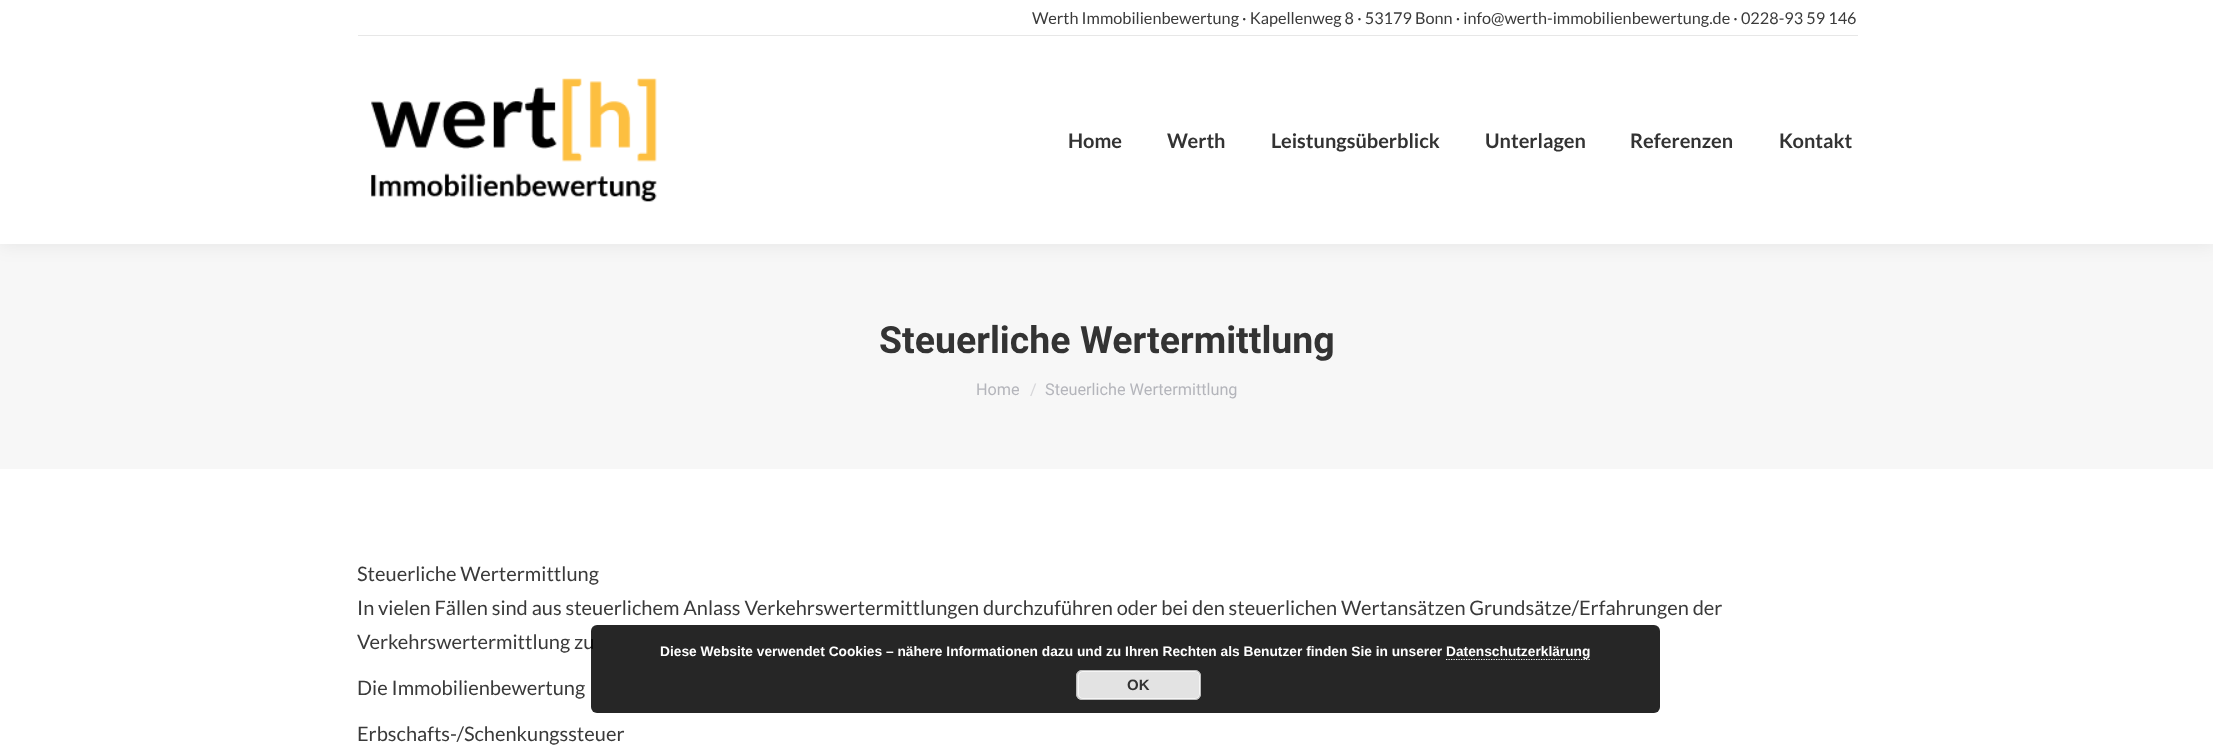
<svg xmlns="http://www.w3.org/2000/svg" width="2213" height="750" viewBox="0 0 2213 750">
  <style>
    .t1 { font: 16.25px Lato; fill: #3a3a3a; }
    .t2 { font: bold 20px Lato; fill: #333; }
    .t3 { font: bold 37.5px Roboto; fill: #333; }
    .t4 { font: 16.25px Roboto; fill: #b4b5bb; }
    .t5 { font: 16.25px Roboto; fill: #d6d6d9; }
    .t6 { font: 20px Lato; fill: #3a3a3a; }
    .t7 { font: bold 13.75px Liberation Sans; fill: #fff; }
    .t8 { font: bold 15px Liberation Sans; fill: #333; }
  </style>
  <rect width="100%" height="100%" fill="#fff"/>
  <rect x="0" y="244" width="2213" height="225" fill="#f7f7f7"/>
  <rect x="-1" y="-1" width="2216" height="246" fill="#00000012" filter="blur(9.5px)"/>
  <rect x="0" y="0" width="2213" height="244" fill="#fff"/>
  <text x="1032" y="24" class="t1">Werth Immobilienbewertung · Kapellenweg 8 · 53179 Bonn · info@werth-immobilienbewertung.de · 0228-93 59 146</text>
  <rect x="358" y="35" width="1500" height="1" fill="#e7e7e7"/>
  <image x="371" y="78" width="286" height="124" href="images/1.png"/>
  <text x="1068" y="148" class="t2">Home</text>
  <text x="1167" y="148" class="t2">Werth</text>
  <text x="1271" y="148" class="t2">Leistungsüberblick</text>
  <text x="1485" y="148" class="t2">Unterlagen</text>
  <text x="1630" y="148" class="t2">Referenzen</text>
  <text x="1779" y="148" class="t2">Kontakt</text>
  <text x="879" y="353" class="t3">Steuerliche Wertermittlung</text>
  <text x="976" y="395" class="t4">Home</text>
  <text x="1030" y="395" class="t5">/</text>
  <text x="1045" y="395" class="t4">Steuerliche Wertermittlung</text>
  <text x="357" y="581" class="t6">Steuerliche Wertermittlung</text>
  <text x="357" y="615" class="t6">In vielen Fällen sind aus steuerlichem Anlass Verkehrswertermittlungen durchzuführen oder bei den steuerlichen Wertansätzen Grundsätze/Erfahrungen der</text>
  <text x="357" y="649" class="t6">Verkehrswertermittlung zu</text>
  <text x="357" y="695" class="t6">Die Immobilienbewertung</text>
  <text x="357" y="741" class="t6">Erbschafts-/Schenkungssteuer</text>
  <rect x="591" y="625" width="1069" height="88" rx="6" fill="#000000d9"/>
  <text x="660" y="656" class="t7">Diese Website verwendet Cookies – nähere Informationen dazu und zu Ihren Rechten als Benutzer finden Sie in unserer</text>
  <path d="M1446 659.5H1591" fill="none" stroke="#fff" stroke-width="1.2" stroke-dasharray="1.25 1.25"/>
  <text x="1446" y="656" class="t7">Datenschutzerklärung</text>
  <rect x="1076" y="670" width="125" height="30" rx="6" fill="#e3e3e3"/>
  <rect x="1078.5" y="671.5" width="121" height="27" rx="4.5" fill="none" stroke="#f6f6f6"/>
  <rect x="1076.5" y="670.5" width="124" height="29" rx="5.5" fill="none" stroke="#bbb"/>
  <text x="1127" y="690" class="t8">OK</text>
</svg>
